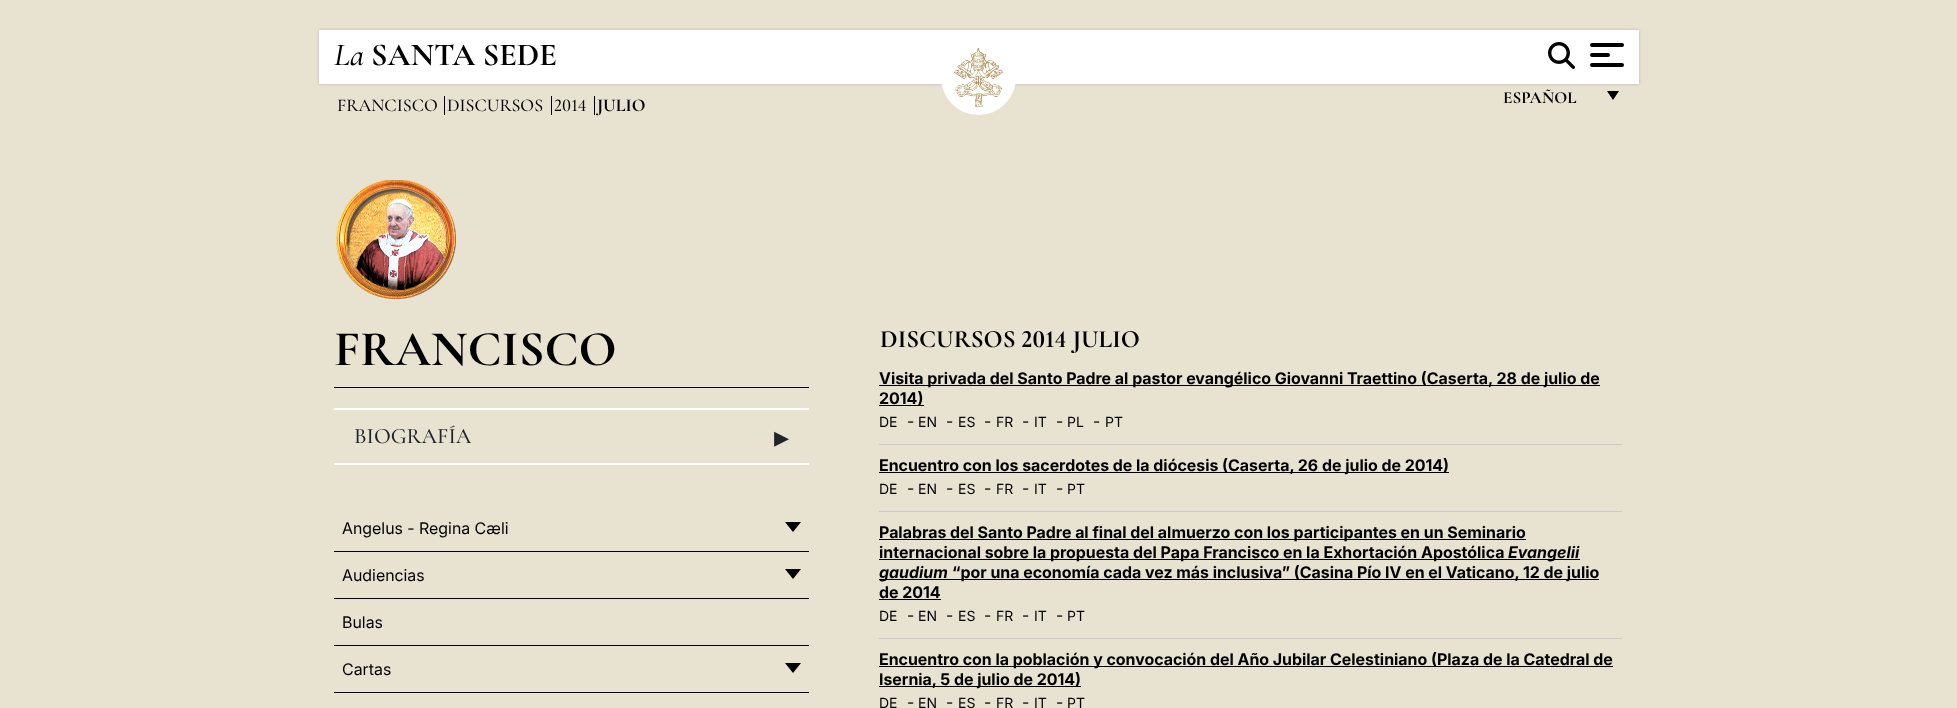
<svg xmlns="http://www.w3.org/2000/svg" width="1957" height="708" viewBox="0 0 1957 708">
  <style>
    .t1 { font: italic 500 32px Cormorant Garamond; fill: #000; }
    .t2 { font: bold 32px Cormorant Garamond; fill: #000; }
    .t3 { font: bold 17px Cormorant Garamond; fill: #000; }
    .t4 { font: 500 18px Cormorant Garamond; fill: #000; }
    .t5 { font: 500 18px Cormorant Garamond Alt; fill: #000; }
    .t6 { font: bold 18px Cormorant Garamond; fill: #000; }
    .t7 { font: bold 50px Cormorant Garamond; fill: #000; }
    .t8 { font: 500 22px Cormorant Garamond; fill: #212529; }
    .t9 { font: 30px DejaVu Sans; fill: #212529; }
    .t10 { font: 16px 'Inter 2'; fill: #000; }
    .t11 { font: bold 25px Cormorant Garamond Alt; fill: #000; }
    .t12 { font: bold 16px Inter; fill: #000; }
    .t13 { font: 14px Inter; fill: #000; }
    .t14 { font: italic bold 16px Inter; fill: #000; }
  </style>
  <rect width="100%" height="100%" fill="#e8e2d1"/>
  <rect x="319" y="30" width="1320" height="54" fill="#4949494f" filter="blur(1.5px)"/>
  <rect x="319" y="30" width="1320" height="54" fill="#fff"/>
  <text x="334" y="65" class="t1">La</text>
  <text x="371" y="65" class="t2">SANTA SEDE</text>
  <circle cx="978.5" cy="77.5" r="37.5" fill="#fff"/>
  <image x="954" y="48" width="49" height="59" href="images/1.png"/>
  <image x="1548" y="42" width="27" height="27" href="images/2.png"/>
  <rect x="1590" y="43" width="34" height="4" rx="2" fill="#000"/>
  <rect x="1590" y="53" width="20" height="4" rx="2" fill="#000"/>
  <rect x="1590" y="63" width="34" height="4" rx="2" fill="#000"/>
  <text x="1503" y="103" class="t3">ESPAÑOL</text>
  <path d="M1607 91H1619L1613 100Z" fill="#000"/>
  <text x="337" y="111" class="t4">FRANCISCO</text>
  <rect x="444" y="96" width="1" height="19" fill="#000"/>
  <text x="447" y="111" class="t4">DISCURSOS</text>
  <rect x="551" y="96" width="1" height="19" fill="#000"/>
  <text x="554" y="111" class="t5">2014</text>
  <rect x="594" y="96" width="1" height="19" fill="#000"/>
  <text x="597" y="111" class="t6">JULIO</text>
  <image x="336" y="180" width="120" height="119" href="images/3.png"/>
  <text x="334" y="365" class="t7">FRANCISCO</text>
  <rect x="334" y="387" width="475" height="1" fill="#000"/>
  <rect x="334" y="408" width="475" height="2" fill="#fff"/>
  <rect x="334" y="463" width="475" height="2" fill="#fff"/>
  <text x="354" y="443" class="t8">BIOGRAFÍA</text>
  <text x="774" y="447" class="t9">▸</text>
  <rect x="334" y="551" width="475" height="1" fill="#000"/>
  <text x="342" y="534" class="t10">Angelus - Regina Cæli</text>
  <path d="M785 522H801L793 532Z" fill="#000"/>
  <rect x="334" y="598" width="475" height="1" fill="#000"/>
  <text x="342" y="581" class="t10">Audiencias</text>
  <path d="M785 569H801L793 579Z" fill="#000"/>
  <rect x="334" y="645" width="475" height="1" fill="#000"/>
  <text x="342" y="628" class="t10">Bulas</text>
  <rect x="334" y="692" width="475" height="1" fill="#000"/>
  <text x="342" y="675" class="t10">Cartas</text>
  <path d="M785 663H801L793 673Z" fill="#000"/>
  <text x="880" y="347" class="t11">DISCURSOS 2014 JULIO</text>
  <rect x="879" y="444" width="743" height="1" fill="#cacaca"/>
  <rect x="879" y="385" width="721" height="1" fill="#000"/>
  <text x="879" y="384" class="t12">Visita privada del Santo Padre al pastor evangélico Giovanni Traettino (Caserta, 28 de julio de</text>
  <rect x="879" y="405" width="45" height="1" fill="#000"/>
  <text x="879" y="404" class="t12">2014)</text>
  <text x="879" y="427" class="t13">DE</text>
  <text x="907" y="427" class="t10">-</text>
  <text x="918" y="427" class="t13">EN</text>
  <text x="946" y="427" class="t10">-</text>
  <text x="958" y="427" class="t13">ES</text>
  <text x="984" y="427" class="t10">-</text>
  <text x="996" y="427" class="t13">FR</text>
  <text x="1022" y="427" class="t10">-</text>
  <text x="1034" y="427" class="t13">IT</text>
  <text x="1056" y="427" class="t10">-</text>
  <text x="1067" y="427" class="t13">PL</text>
  <text x="1093" y="427" class="t10">-</text>
  <text x="1105" y="427" class="t13">PT</text>
  <rect x="879" y="511" width="743" height="1" fill="#cacaca"/>
  <rect x="879" y="472" width="570" height="1" fill="#000"/>
  <text x="879" y="471" class="t12">Encuentro con los sacerdotes de la diócesis (Caserta, 26 de julio de 2014)</text>
  <text x="879" y="494" class="t13">DE</text>
  <text x="907" y="494" class="t10">-</text>
  <text x="918" y="494" class="t13">EN</text>
  <text x="946" y="494" class="t10">-</text>
  <text x="958" y="494" class="t13">ES</text>
  <text x="984" y="494" class="t10">-</text>
  <text x="996" y="494" class="t13">FR</text>
  <text x="1022" y="494" class="t10">-</text>
  <text x="1034" y="494" class="t13">IT</text>
  <text x="1056" y="494" class="t10">-</text>
  <text x="1067" y="494" class="t13">PT</text>
  <rect x="879" y="638" width="743" height="1" fill="#cacaca"/>
  <rect x="879" y="539" width="647" height="1" fill="#000"/>
  <text x="879" y="538" class="t12">Palabras del Santo Padre al final del almuerzo con los participantes en un Seminario</text>
  <rect x="879" y="559" width="701" height="1" fill="#000"/>
  <text x="879" y="558" class="t12">internacional sobre la propuesta del Papa Francisco en la Exhortación Apostólica</text>
  <text x="1508" y="558" class="t14">Evangelii</text>
  <rect x="879" y="579" width="720" height="1" fill="#000"/>
  <text x="879" y="578" class="t14">gaudium</text>
  <text x="952" y="578" class="t12">“por una economía cada vez más inclusiva” (Casina Pío IV en el Vaticano, 12 de julio</text>
  <text x="879" y="598" class="t12">de 2014</text>
  <rect x="879" y="599" width="62" height="1" fill="#000"/>
  <text x="879" y="621" class="t13">DE</text>
  <text x="907" y="621" class="t10">-</text>
  <text x="918" y="621" class="t13">EN</text>
  <text x="946" y="621" class="t10">-</text>
  <text x="958" y="621" class="t13">ES</text>
  <text x="984" y="621" class="t10">-</text>
  <text x="996" y="621" class="t13">FR</text>
  <text x="1022" y="621" class="t10">-</text>
  <text x="1034" y="621" class="t13">IT</text>
  <text x="1056" y="621" class="t10">-</text>
  <text x="1067" y="621" class="t13">PT</text>
  <rect x="879" y="666" width="734" height="1" fill="#000"/>
  <text x="879" y="665" class="t12">Encuentro con la población y convocación del Año Jubilar Celestiniano (Plaza de la Catedral de</text>
  <rect x="879" y="686" width="202" height="1" fill="#000"/>
  <text x="879" y="685" class="t12">Isernia, 5 de julio de 2014)</text>
  <text x="879" y="708" class="t13">DE</text>
  <text x="907" y="708" class="t10">-</text>
  <text x="918" y="708" class="t13">EN</text>
  <text x="946" y="708" class="t10">-</text>
  <text x="958" y="708" class="t13">ES</text>
  <text x="984" y="708" class="t10">-</text>
  <text x="996" y="708" class="t13">FR</text>
  <text x="1022" y="708" class="t10">-</text>
  <text x="1034" y="708" class="t13">IT</text>
  <text x="1056" y="708" class="t10">-</text>
  <text x="1067" y="708" class="t13">PT</text>
</svg>
